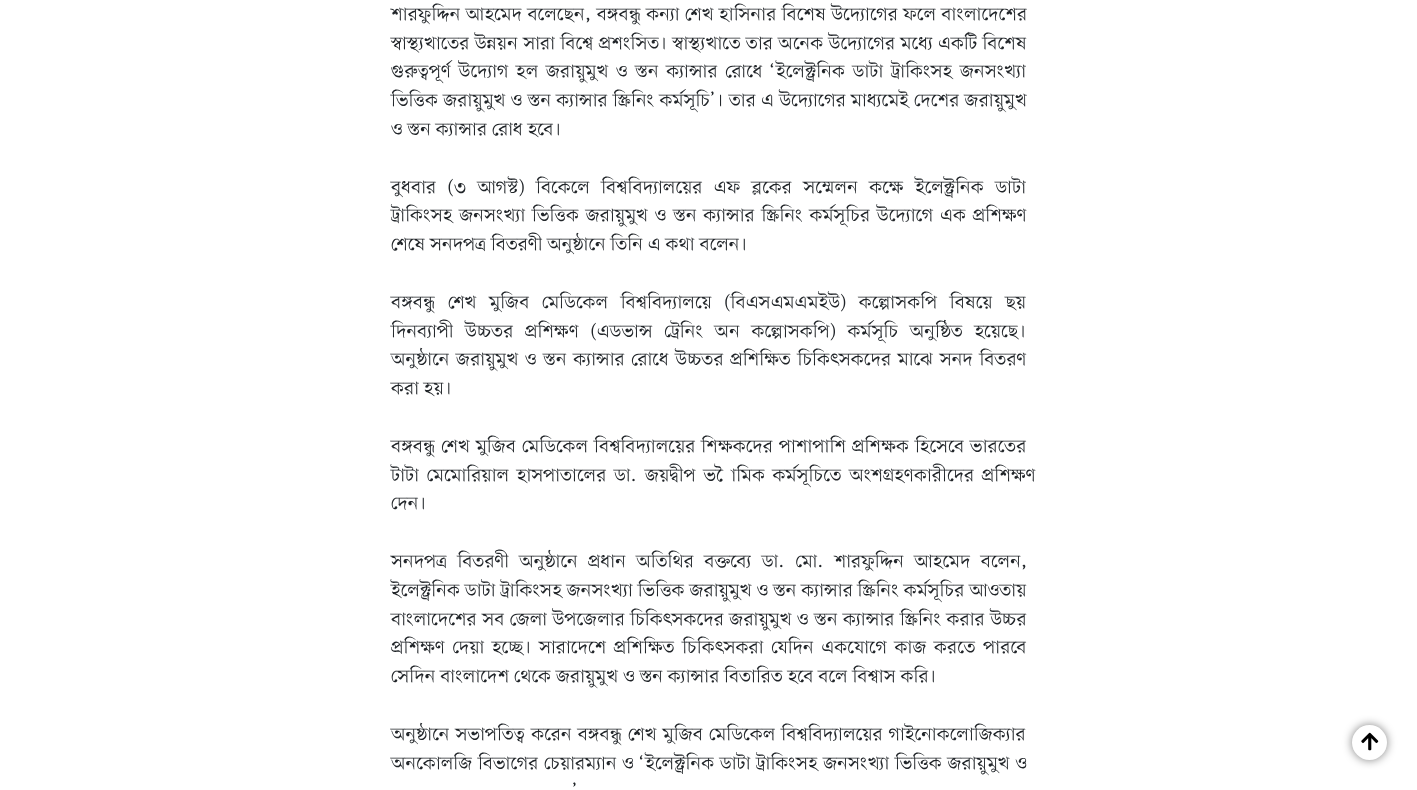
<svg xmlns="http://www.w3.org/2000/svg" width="1417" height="790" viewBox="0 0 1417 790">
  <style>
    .t1 { font: 19.2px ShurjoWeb; fill: #212529; }
  </style>
  <rect width="100%" height="100%" fill="#fff"/>
  <text x="391" y="20" word-spacing="0.5" class="t1">শারফুদ্দিন আহমেদ বলেছেন, বঙ্গবন্ধু কন্যা শেখ হাসিনার বিশেষ উদ্যোগের ফলে বাংলাদেশের</text>
  <text x="391" y="49" word-spacing="0.5" class="t1">স্বাস্থ্যখাতের উন্নয়ন সারা বিশ্বে প্রশংসিত। স্বাস্থ্যখাতে তার অনেক উদ্যোগের মধ্যে একটি বিশেষ</text>
  <text x="391" y="77" word-spacing="2.75" class="t1">গুরুত্বপূর্ণ উদ্যোগ হল জরায়ুমুখ ও স্তন ক্যান্সার রোধে ‘ইলেক্ট্রনিক ডাটা ট্রাকিংসহ জনসংখ্যা</text>
  <text x="391" y="106" word-spacing="0.4" class="t1">ভিত্তিক জরায়ুমুখ ও স্তন ক্যান্সার স্ক্রিনিং কর্মসূচি’। তার এ উদ্যোগের মাধ্যমেই দেশের জরায়ুমুখ</text>
  <text x="391" y="135" class="t1">ও স্তন ক্যান্সার রোধ হবে।</text>
  <text x="391" y="193" word-spacing="6.5" class="t1">বুধবার (৩ আগস্ট) বিকেলে বিশ্ববিদ্যালয়ের এফ ব্লকের সম্মেলন কক্ষে ইলেক্ট্রনিক ডাটা</text>
  <text x="391" y="221" word-spacing="1.9" class="t1">ট্রাকিংসহ জনসংখ্যা ভিত্তিক জরায়ুমুখ ও স্তন ক্যান্সার স্ক্রিনিং কর্মসূচির উদ্যোগে এক প্রশিক্ষণ</text>
  <text x="391" y="250" class="t1">শেষে সনদপত্র বিতরণী অনুষ্ঠানে তিনি এ কথা বলেন।</text>
  <text x="391" y="308" word-spacing="7.75" class="t1">বঙ্গবন্ধু শেখ মুজিব মেডিকেল বিশ্ববিদ্যালয়ে (বিএসএমএমইউ) কল্পোসকপি বিষয়ে ছয়</text>
  <text x="391" y="337" word-spacing="6.75" class="t1">দিনব্যাপী উচ্চতর প্রশিক্ষণ (এডভান্স ট্রেনিং অন কল্পোসকপি) কর্মসূচি অনুষ্ঠিত হয়েছে।</text>
  <text x="391" y="365" word-spacing="1.75" class="t1">অনুষ্ঠানে জরায়ুমুখ ও স্তন ক্যান্সার রোধে উচ্চতর প্রশিক্ষিত চিকিৎসকদের মাঝে সনদ বিতরণ</text>
  <text x="391" y="394" class="t1">করা হয়।</text>
  <text x="391" y="452" word-spacing="1.1" class="t1">বঙ্গবন্ধু শেখ মুজিব মেডিকেল বিশ্ববিদ্যালয়ের শিক্ষকদের পাশাপাশি প্রশিক্ষক হিসেবে ভারতের</text>
  <text x="391" y="481" word-spacing="2.75" class="t1">টাটা মেমোরিয়াল হাসপাতালের ডা. জয়দ্বীপ ভৌমিক কর্মসূচিতে অংশগ্রহণকারীদের প্রশিক্ষণ</text>
  <text x="391" y="509" class="t1">দেন।</text>
  <text x="391" y="567" word-spacing="5.5" class="t1">সনদপত্র বিতরণী অনুষ্ঠানে প্রধান অতিথির বক্তব্যে ডা. মো. শারফুদ্দিন আহমেদ বলেন,</text>
  <text x="391" y="596" class="t1">ইলেক্ট্রনিক ডাটা ট্রাকিংসহ জনসংখ্যা ভিত্তিক জরায়ুমুখ ও স্তন ক্যান্সার স্ক্রিনিং কর্মসূচির আওতায়</text>
  <text x="391" y="625" word-spacing="0.6" class="t1">বাংলাদেশের সব জেলা উপজেলার চিকিৎসকদের জরায়ুমুখ ও স্তন ক্যান্সার স্ক্রিনিং করার উচ্চর</text>
  <text x="391" y="653" word-spacing="2.75" class="t1">প্রশিক্ষণ দেয়া হচ্ছে। সারাদেশে প্রশিক্ষিত চিকিৎসকরা যেদিন একযোগে কাজ করতে পারবে</text>
  <text x="391" y="682" class="t1">সেদিন বাংলাদেশ থেকে জরায়ুমুখ ও স্তন ক্যান্সার বিতারিত হবে বলে বিশ্বাস করি।</text>
  <text x="391" y="740" word-spacing="1.25" class="t1">অনুষ্ঠানে সভাপতিত্ব করেন বঙ্গবন্ধু শেখ মুজিব মেডিকেল বিশ্ববিদ্যালয়ের গাইনোকলোজিক্যার</text>
  <text x="391" y="769" word-spacing="0.75" class="t1">অনকোলজি বিভাগের চেয়ারম্যান ও ‘ইলেক্ট্রনিক ডাটা ট্রাকিংসহ জনসংখ্যা ভিত্তিক জরায়ুমুখ ও</text>
  <text x="572" y="797" class="t1">’</text>
  <rect x="1352" y="725" width="35" height="35" rx="17.5" fill="#00000080" filter="blur(5px)"/>
  <circle cx="1369.5" cy="742.5" r="17.5" fill="#fff"/>
  <image x="1361" y="732" width="18" height="19" href="images/1.png"/>
</svg>
